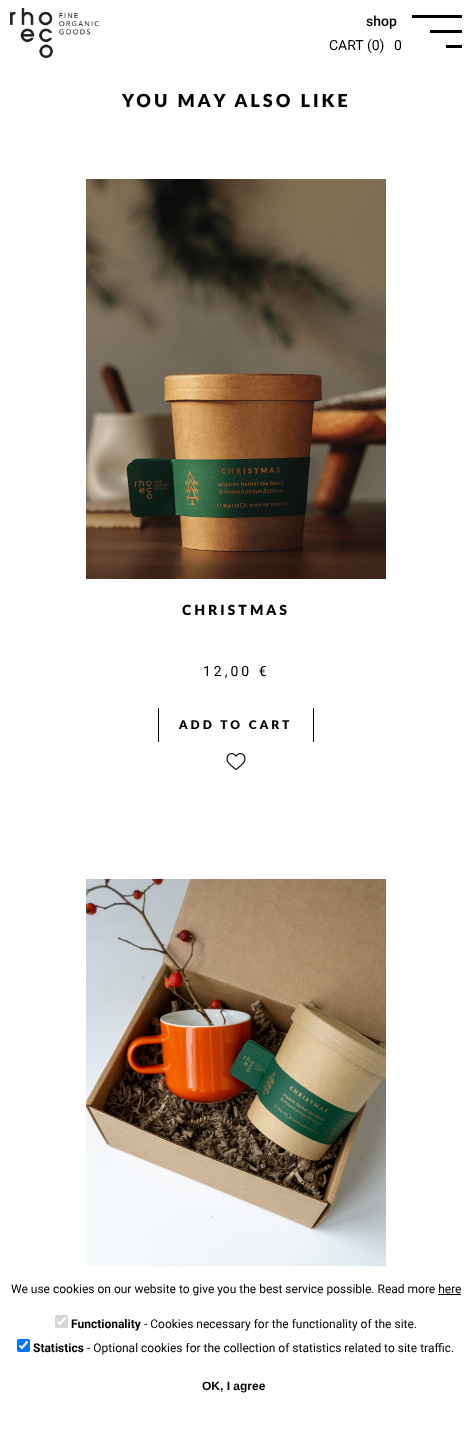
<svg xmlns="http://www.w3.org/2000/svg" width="472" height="1431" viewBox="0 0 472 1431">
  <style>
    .t1 { font: 500 14px Roboto; fill: #000; }
    .t2 { font: 900 18px Lato; letter-spacing: 3px; fill: #000; }
    .t3 { font: 900 14px Lato; letter-spacing: 3px; fill: #000; }
    .t4 { font: 14px Roboto; letter-spacing: 3px; fill: #000; }
    .t5 { font: 900 12px Lato; letter-spacing: 3px; fill: #000; }
    .t6 { font: 14px Roboto; fill: #000; }
    .t7 { font: 12px Roboto; fill: #000; }
    .t8 { font: bold 12px Roboto; fill: #000; }
    .t9 { font: bold 12px Liberation Sans; fill: #000; }
  </style>
  <rect width="100%" height="100%" fill="#fff"/>
  <text x="366" y="26" class="t1">shop</text>
  <rect x="430" y="30" width="32" height="3" fill="#000"/>
  <rect x="412" y="15" width="50" height="3" fill="#000"/>
  <rect x="446" y="45" width="16" height="3" fill="#000"/>
  <text x="122" y="107" class="t2">YOU MAY ALSO LIKE</text>
  <image x="86" y="179" width="300" height="400" href="images/1.png"/>
  <text x="182" y="615" class="t3">CHRISTMAS</text>
  <text x="203" y="676" class="t4">12,00 €</text>
  <rect x="313" y="708" width="1" height="34" fill="#000"/>
  <rect x="158" y="708" width="1" height="34" fill="#000"/>
  <text x="179" y="729" class="t5">ADD TO CART</text>
  <image x="226" y="753" width="20" height="17" href="images/2.png"/>
  <image x="86" y="879" width="300" height="387" href="images/3.png"/>
  <image x="10" y="8" width="89" height="50" href="images/4.png"/>
  <text x="329" y="50" class="t6">CART (0)</text>
  <text x="394" y="50" class="t6">0</text>
  <text x="11" y="1293" class="t7">We use cookies on our website to give you the best service possible. Read more here</text>
  <rect x="438" y="1294" width="23" height="1" fill="#000"/>
  <rect x="55" y="1315" width="13" height="13" rx="2" fill="#d6d6d6"/>
  <path d="M57.5 1321.5L60 1324L65.5 1317.5" fill="none" stroke="#fff" stroke-width="2.1"/>
  <text x="71" y="1328" class="t8">Functionality</text>
  <text x="144" y="1328" class="t7">- Cookies necessary for the functionality of the site.</text>
  <rect x="17" y="1339" width="13" height="13" rx="2" fill="#0075ff"/>
  <path d="M19.5 1345.5L22 1348L27.5 1341.5" fill="none" stroke="#fff" stroke-width="2.1"/>
  <text x="33" y="1352" class="t8">Statistics</text>
  <text x="87" y="1352" class="t7">- Optional cookies for the collection of statistics related to site traffic.</text>
  <text x="202" y="1390" class="t9">OK, I agree</text>
</svg>
